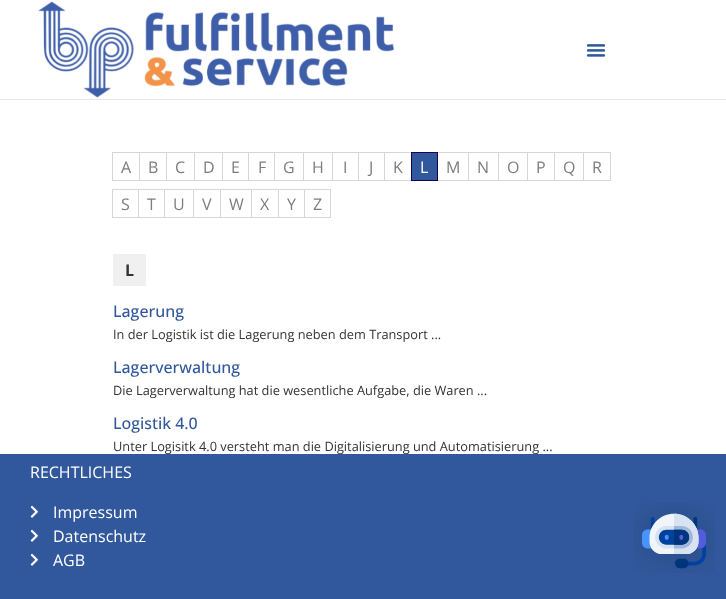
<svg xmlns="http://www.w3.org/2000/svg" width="726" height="599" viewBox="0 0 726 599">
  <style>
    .t1 { font: 16px Open Sans; fill: #7d7d7d; }
    .t2 { font: 16px Open Sans; fill: #fff; }
    .t3 { font: bold 16px Open Sans; fill: #333; }
    .t4 { font: 500 16px Open Sans; fill: #31589c; }
    .t5 { font: 12.8px Open Sans; fill: #333; }
  </style>
  <rect width="100%" height="100%" fill="#fff"/>
  <rect x="0" y="99" width="726" height="1" fill="#e7e7e7"/>
  <image x="38" y="1" width="357" height="97" href="images/1.png"/>
  <image x="586" y="44" width="20" height="13" href="images/2.png"/>
  <rect x="112.5" y="152.5" width="27" height="28" fill="none" stroke="#d7d7d7"/>
  <text x="121" y="173" class="t1">A</text>
  <rect x="139.5" y="152.5" width="27" height="28" fill="none" stroke="#d7d7d7"/>
  <text x="148" y="173" class="t1">B</text>
  <rect x="166.5" y="152.5" width="28" height="28" fill="none" stroke="#d7d7d7"/>
  <text x="175" y="173" class="t1">C</text>
  <rect x="194.5" y="152.5" width="28" height="28" fill="none" stroke="#d7d7d7"/>
  <text x="203" y="173" class="t1">D</text>
  <rect x="222.5" y="152.5" width="26" height="28" fill="none" stroke="#d7d7d7"/>
  <text x="231" y="173" class="t1">E</text>
  <rect x="248.5" y="152.5" width="26" height="28" fill="none" stroke="#d7d7d7"/>
  <text x="258" y="173" class="t1">F</text>
  <rect x="274.5" y="152.5" width="29" height="28" fill="none" stroke="#d7d7d7"/>
  <text x="283" y="173" class="t1">G</text>
  <rect x="303.5" y="152.5" width="29" height="28" fill="none" stroke="#d7d7d7"/>
  <text x="312" y="173" class="t1">H</text>
  <rect x="332.5" y="152.5" width="26" height="28" fill="none" stroke="#d7d7d7"/>
  <text x="343" y="173" class="t1">I</text>
  <rect x="358.5" y="152.5" width="26" height="28" fill="none" stroke="#d7d7d7"/>
  <text x="369" y="173" class="t1">J</text>
  <rect x="384.5" y="152.5" width="27" height="28" fill="none" stroke="#d7d7d7"/>
  <text x="393" y="173" class="t1">K</text>
  <rect x="437.5" y="152.5" width="31" height="28" fill="none" stroke="#d7d7d7"/>
  <rect x="411.5" y="152.5" width="26" height="28" fill="#31589c" stroke="#160351"/>
  <text x="420" y="173" class="t2">L</text>
  <text x="446" y="173" class="t1">M</text>
  <rect x="468.5" y="152.5" width="30" height="28" fill="none" stroke="#d7d7d7"/>
  <text x="477" y="173" class="t1">N</text>
  <rect x="498.5" y="152.5" width="29" height="28" fill="none" stroke="#d7d7d7"/>
  <text x="507" y="173" class="t1">O</text>
  <rect x="527.5" y="152.5" width="27" height="28" fill="none" stroke="#d7d7d7"/>
  <text x="536" y="173" class="t1">P</text>
  <rect x="554.5" y="152.5" width="29" height="28" fill="none" stroke="#d7d7d7"/>
  <text x="563" y="173" class="t1">Q</text>
  <rect x="583.5" y="152.5" width="27" height="28" fill="none" stroke="#d7d7d7"/>
  <text x="592" y="173" class="t1">R</text>
  <rect x="112.5" y="189.5" width="26" height="28" fill="none" stroke="#d7d7d7"/>
  <text x="121" y="210" class="t1">S</text>
  <rect x="138.5" y="189.5" width="26" height="28" fill="none" stroke="#d7d7d7"/>
  <text x="147" y="210" class="t1">T</text>
  <rect x="164.5" y="189.5" width="29" height="28" fill="none" stroke="#d7d7d7"/>
  <text x="173" y="210" class="t1">U</text>
  <rect x="193.5" y="189.5" width="27" height="28" fill="none" stroke="#d7d7d7"/>
  <text x="202" y="210" class="t1">V</text>
  <rect x="220.5" y="189.5" width="31" height="28" fill="none" stroke="#d7d7d7"/>
  <text x="229" y="210" class="t1">W</text>
  <rect x="251.5" y="189.5" width="27" height="28" fill="none" stroke="#d7d7d7"/>
  <text x="260" y="210" class="t1">X</text>
  <rect x="278.5" y="189.5" width="26" height="28" fill="none" stroke="#d7d7d7"/>
  <text x="287" y="210" class="t1">Y</text>
  <rect x="304.5" y="189.5" width="26" height="28" fill="none" stroke="#d7d7d7"/>
  <text x="313" y="210" class="t1">Z</text>
  <rect x="113" y="254" width="33" height="32" fill="#f0f0f0"/>
  <text x="125" y="276" class="t3">L</text>
  <text x="113" y="317" class="t4">Lagerung</text>
  <text x="113" y="339" class="t5">In der Logistik ist die Lagerung neben dem Transport ...</text>
  <text x="113" y="373" class="t4">Lagerverwaltung</text>
  <text x="113" y="395" class="t5">Die Lagerverwaltung hat die wesentliche Aufgabe, die Waren ...</text>
  <text x="113" y="429" class="t4">Logistik 4.0</text>
  <text x="113" y="451" class="t5">Unter Logisitk 4.0 versteht man die Digitalisierung und Automatisierung ...</text>
  <rect x="0" y="454" width="726" height="145" fill="#31589c"/>
  <text x="30" y="478" class="t2">RECHTLICHES</text>
  <image x="30" y="505" width="8" height="13" href="images/3.png"/>
  <text x="53" y="518" class="t2">Impressum</text>
  <image x="30" y="529" width="8" height="13" href="images/3.png"/>
  <text x="53" y="542" class="t2">Datenschutz</text>
  <image x="30" y="553" width="8" height="13" href="images/3.png"/>
  <text x="53" y="566" class="t2">AGB</text>
  <image x="634" y="503" width="81" height="70" href="images/4.png"/>
</svg>
